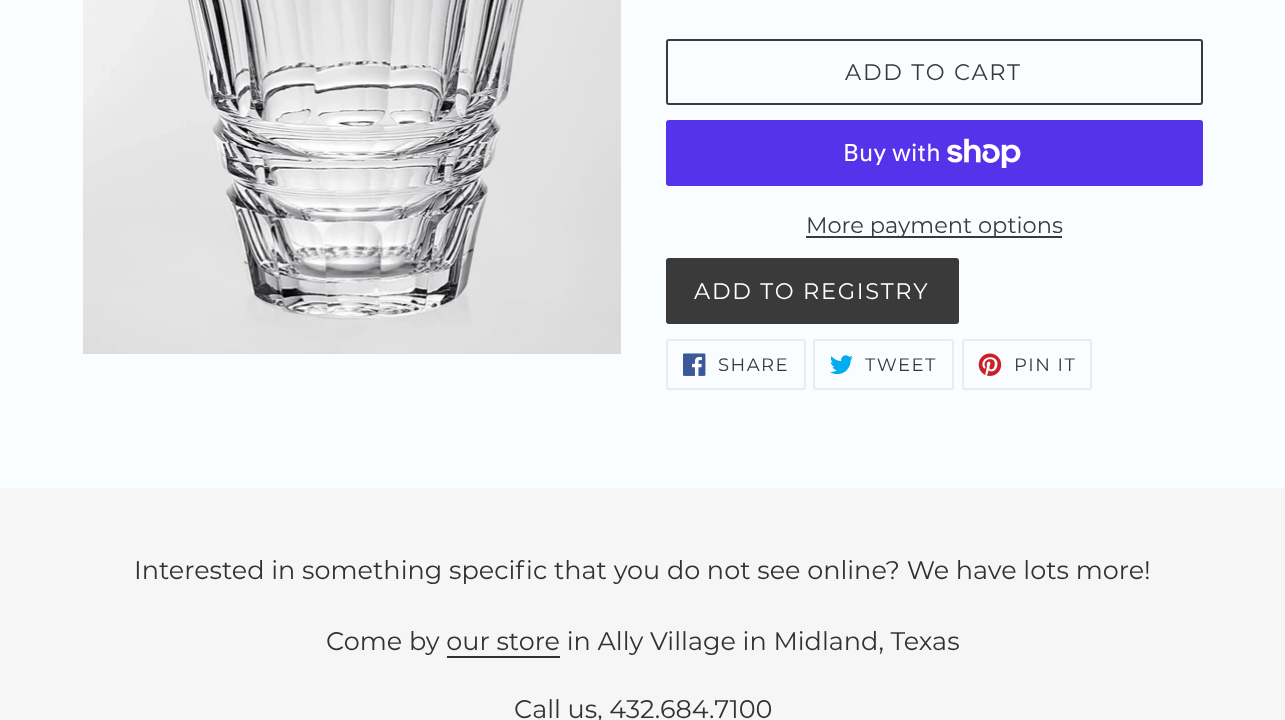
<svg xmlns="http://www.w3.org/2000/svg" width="1285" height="720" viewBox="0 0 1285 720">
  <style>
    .t1 { font: 22.5px Montserrat; letter-spacing: 1.75px; fill: #3a3a3a; }
    .t2 { font: 24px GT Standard; fill: #fff; }
    .t3 { font: 22.5px Montserrat; fill: #3a3a3a; }
    .t4 { font: 22.5px Montserrat; letter-spacing: 1.75px; fill: #fff; }
    .t5 { font: 18px Montserrat; letter-spacing: 1.5px; fill: #3a3a3a; }
    .t6 { font: 25.5px Montserrat; fill: #333232; }
  </style>
  <rect width="100%" height="100%" fill="#f9fdff"/>
  <image x="83" y="0" width="538" height="354" href="images/1.png"/>
  <rect x="667" y="40" width="535" height="64" rx="2" fill="none" stroke="#3a3a3a" stroke-width="2"/>
  <text x="845" y="80" class="t1">ADD TO CART</text>
  <rect x="666" y="120" width="537" height="66" rx="3" fill="#5433eb"/>
  <text x="843" y="161" class="t2">Buy with</text>
  <image x="947" y="138" width="74" height="30" href="images/2.png"/>
  <rect x="806" y="236" width="256" height="2" fill="#3a3a3a"/>
  <text x="806" y="233" class="t3">More payment options</text>
  <rect x="666" y="258" width="293" height="66" rx="3" fill="#3a3a3a"/>
  <text x="694" y="299" class="t4">ADD TO REGISTRY</text>
  <rect x="667" y="340" width="138" height="49" rx="2" fill="none" stroke="#ebebeb" stroke-width="2"/>
  <image x="683" y="353" width="23" height="23" href="images/3.png"/>
  <text x="718" y="371" class="t5">SHARE</text>
  <rect x="814" y="340" width="139" height="49" rx="2" fill="none" stroke="#ebebeb" stroke-width="2"/>
  <image x="830" y="355" width="23" height="20" href="images/4.png"/>
  <text x="865" y="371" class="t5">TWEET</text>
  <rect x="963" y="340" width="128" height="49" rx="2" fill="none" stroke="#ebebeb" stroke-width="2"/>
  <image x="978" y="353" width="24" height="23" href="images/5.png"/>
  <text x="1014" y="371" class="t5">PIN IT</text>
  <rect x="0" y="488" width="1285" height="232" fill="#f6f6f6"/>
  <text x="134" y="579" class="t6">Interested in something specific that you do not see online? We have lots more!</text>
  <text x="326" y="650" class="t6">Come by our store in Ally Village in Midland, Texas</text>
  <rect x="447" y="656" width="113" height="2" fill="#333232"/>
  <text x="514" y="718" class="t6">Call us, 432.684.7100</text>
</svg>
